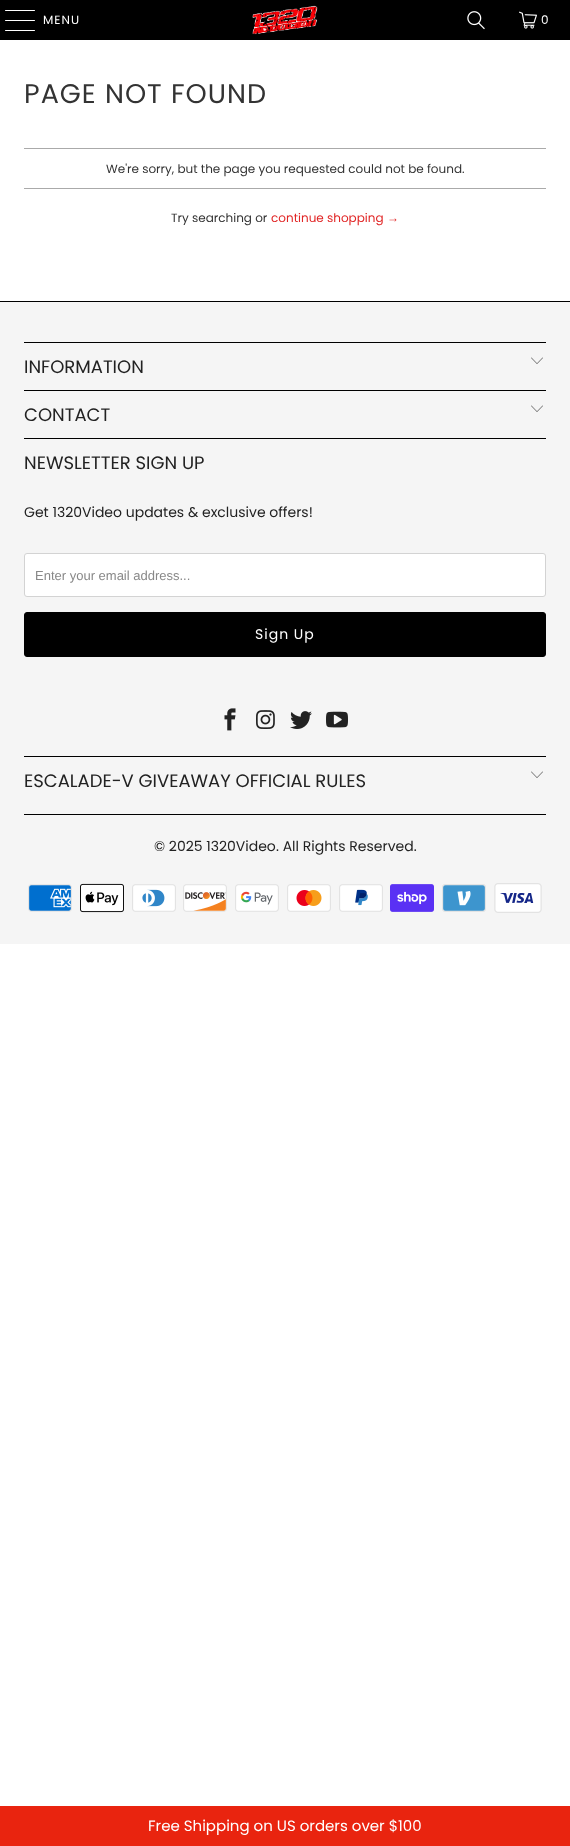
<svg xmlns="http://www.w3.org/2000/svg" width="570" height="1846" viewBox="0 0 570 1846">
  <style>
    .t1 { font: 12px Poppins; letter-spacing: 1px; fill: #fff; }
    .t2 { font: 27px Poppins; letter-spacing: 1px; fill: #333; }
    .t3 { font: 12px Poppins; fill: #333; }
    .t4 { font: 12px Poppins; fill: #e12525; }
    .t5 { font: 12px Liberation Sans; fill: #e12525; }
    .t6 { font: 18px Poppins; fill: #222; }
    .t7 { font: 14px Poppins; fill: #222; }
    .t8 { font: 13px Liberation Sans; fill: #888; }
    .t9 { font: 14px Poppins; letter-spacing: 1px; fill: #fff; }
    .t10 { font: 15px Poppins; fill: #fff; }
  </style>
  <rect width="100%" height="100%" fill="#fff"/>
  <rect x="0" y="0" width="570" height="40" fill="#000"/>
  <rect x="5" y="10" width="30" height="1" rx="0.5" fill="#fff"/>
  <rect x="5" y="20" width="30" height="1" rx="0.5" fill="#fff"/>
  <rect x="5" y="30" width="30" height="1" rx="0.5" fill="#fff"/>
  <text x="43" y="24" class="t1">MENU</text>
  <image x="252" y="5" width="66" height="30" href="images/1.png"/>
  <image x="467" y="11" width="18" height="19" href="images/2.png"/>
  <image x="519" y="11" width="18" height="18" href="images/3.png"/>
  <text x="541" y="24" class="t1">0</text>
  <text x="24" y="103" class="t2">PAGE NOT FOUND</text>
  <rect x="24" y="148" width="522" height="1" fill="#aaa"/>
  <rect x="24" y="188" width="522" height="1" fill="#aaa"/>
  <text x="106" y="173" class="t3">We're sorry, but the page you requested could not be found.</text>
  <text x="171" y="222" class="t3">Try searching or</text>
  <text x="271" y="222" class="t4">continue shopping</text>
  <text x="387" y="222" class="t5">→</text>
  <rect x="0" y="302" width="570" height="642" fill="#f5f5f5"/>
  <rect x="0" y="301" width="570" height="1" fill="#000"/>
  <rect x="24" y="342" width="522" height="1" fill="#000"/>
  <text x="24" y="373" class="t6">INFORMATION</text>
  <image x="531" y="357" width="12" height="7" href="images/4.png"/>
  <rect x="24" y="390" width="522" height="1" fill="#000"/>
  <text x="24" y="421" class="t6">CONTACT</text>
  <image x="531" y="405" width="12" height="7" href="images/4.png"/>
  <rect x="24" y="438" width="522" height="1" fill="#000"/>
  <text x="24" y="469" class="t6">NEWSLETTER SIGN UP</text>
  <text x="24" y="517" class="t7">Get 1320Video updates &amp; exclusive offers!</text>
  <rect x="24.5" y="553.5" width="521" height="43" rx="2.5" fill="#fff" stroke="#d3d3d3"/>
  <text x="35" y="580" class="t8">Enter your email address...</text>
  <rect x="24.5" y="612.5" width="521" height="44" rx="2.5" fill="#000" stroke="#000"/>
  <text x="255" y="639" class="t9">Sign Up</text>
  <image x="224" y="708" width="12" height="23" href="images/5.png"/>
  <image x="256" y="710" width="19" height="19" href="images/6.png"/>
  <image x="290" y="711" width="22" height="18" href="images/7.png"/>
  <image x="326" y="711" width="22" height="17" href="images/8.png"/>
  <rect x="24" y="756" width="522" height="1" fill="#000"/>
  <text x="24" y="787" class="t6">ESCALADE-V GIVEAWAY OFFICIAL RULES</text>
  <image x="531" y="771" width="12" height="7" href="images/4.png"/>
  <rect x="24" y="814" width="522" height="1" fill="#000"/>
  <text x="154" y="851" class="t7">© 2025 1320Video</text>
  <text x="276" y="851" class="t7">. All Rights Reserved.</text>
  <image x="28" y="884" width="44" height="28" href="images/9.png"/>
  <image x="80" y="883" width="44" height="30" href="images/10.png"/>
  <image x="132" y="884" width="44" height="28" href="images/11.png"/>
  <image x="183" y="884" width="44" height="28" href="images/12.png"/>
  <image x="235" y="884" width="44" height="28" href="images/13.png"/>
  <image x="287" y="884" width="44" height="28" href="images/14.png"/>
  <image x="339" y="884" width="44" height="28" href="images/15.png"/>
  <image x="390" y="884" width="44" height="28" href="images/16.png"/>
  <image x="442" y="884" width="44" height="28" href="images/17.png"/>
  <image x="494" y="883" width="48" height="30" href="images/18.png"/>
  <rect x="0" y="1806" width="570" height="40" fill="#e9240f"/>
  <text x="148" y="1831" class="t10">Free Shipping on US orders over $100</text>
</svg>
